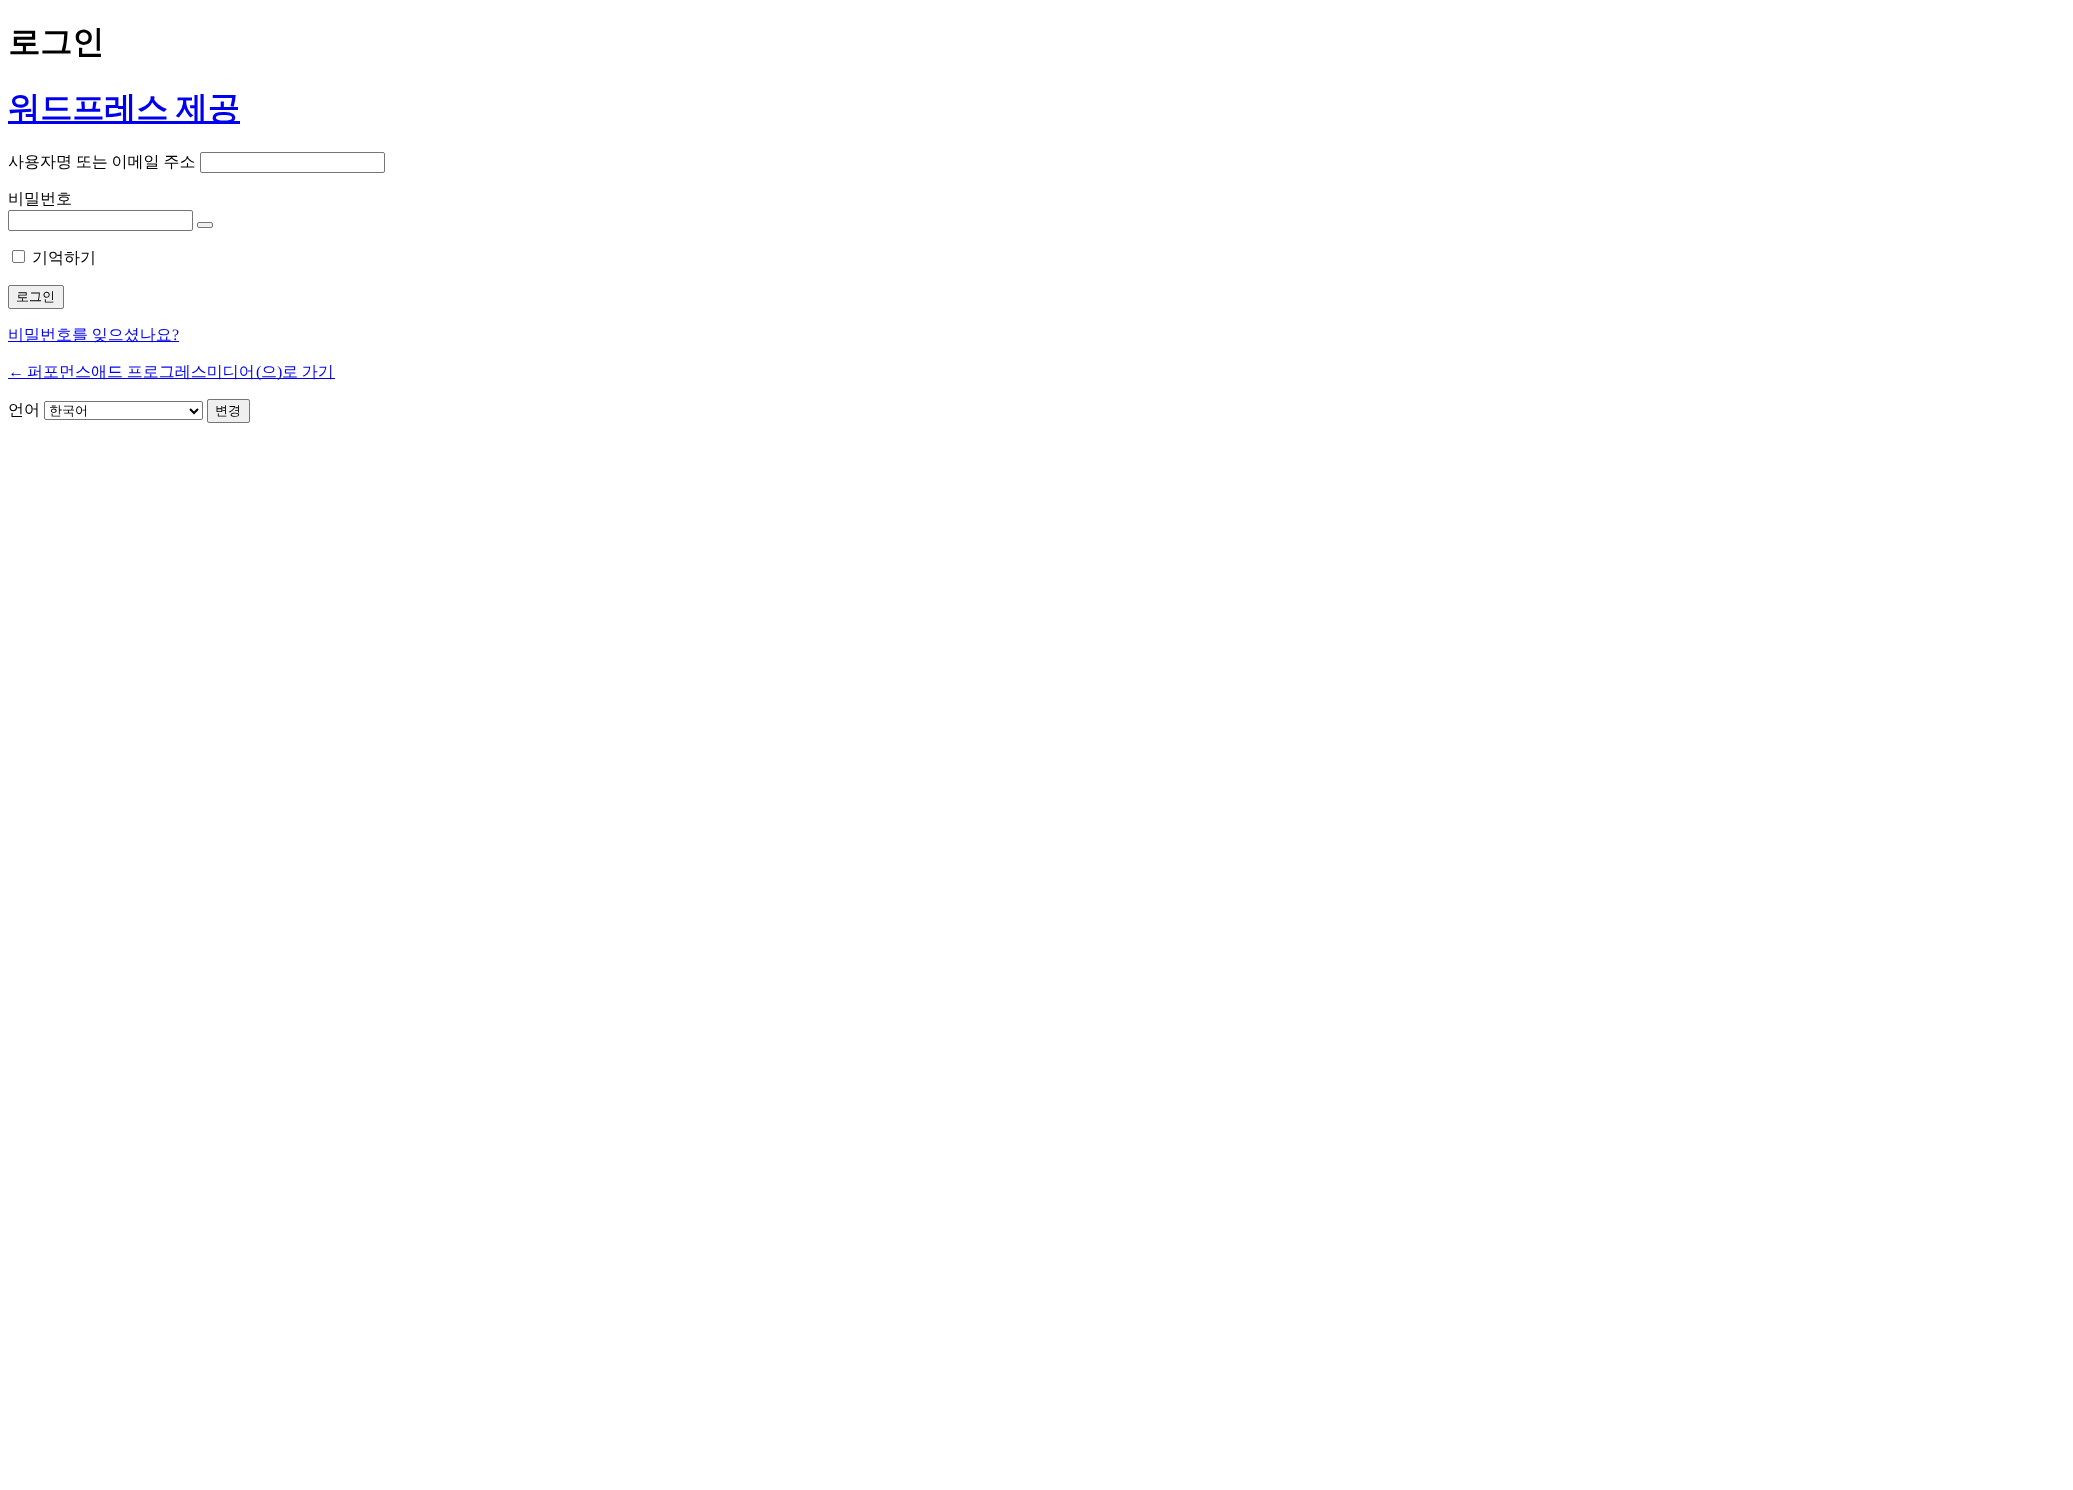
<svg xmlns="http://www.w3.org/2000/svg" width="2073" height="1490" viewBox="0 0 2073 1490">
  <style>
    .t1 { font: bold 32px WenQuanYi Zen Hei; fill: #000; }
    .t2 { font: bold 32px WenQuanYi Zen Hei; fill: #00e; }
    .t3 { font: 500 16px WenQuanYi Zen Hei; fill: #000; }
    .t4 { font: 500 13px WenQuanYi Zen Hei; fill: #000; }
    .t5 { font: 500 16px WenQuanYi Zen Hei; fill: #00e; }
    .t6 { font: 16px Liberation Serif; fill: #00e; }
  </style>
  <rect width="100%" height="100%" fill="#fff"/>
  <text x="8" y="53" class="t1">로그인</text>
  <rect x="8" y="121" width="232" height="3" fill="#00e"/>
  <text x="8" y="119" word-spacing="-2" class="t2">워드프레스 제공</text>
  <text x="8" y="167" word-spacing="-1" class="t3">사용자명 또는 이메일 주소</text>
  <rect x="200.5" y="152.5" width="184" height="20" rx="1.5" fill="none" stroke="#767676"/>
  <text x="8" y="204" class="t3">비밀번호</text>
  <rect x="8.5" y="210.5" width="184" height="20" rx="1.5" fill="none" stroke="#767676"/>
  <rect x="197.5" y="222.5" width="15" height="5" rx="1.5" fill="#efefef" stroke="#767676"/>
  <rect x="12.5" y="250.5" width="12" height="12" rx="1.5" fill="none" stroke="#767676"/>
  <text x="32" y="263" class="t3">기억하기</text>
  <rect x="8.5" y="285.5" width="55" height="23" rx="1.5" fill="#efefef" stroke="#767676"/>
  <text x="16" y="301" class="t4">로그인</text>
  <rect x="8" y="341" width="171" height="1" fill="#00e"/>
  <text x="8" y="340" word-spacing="-1" class="t5">비밀번호를 잊으셨나요</text>
  <text x="172" y="340" class="t6">?</text>
  <text x="8" y="377" class="t6">←</text>
  <rect x="8" y="378" width="327" height="1" fill="#00e"/>
  <text x="27" y="377" word-spacing="-1" class="t5">퍼포먼스애드 프로그레스미디어</text>
  <text x="256" y="377" class="t6">(</text>
  <text x="261" y="377" class="t5">으</text>
  <text x="277" y="377" class="t6">)</text>
  <text x="282" y="377" word-spacing="-1" class="t5">로 가기</text>
  <text x="8" y="415" class="t3">언어</text>
  <rect x="44.5" y="401.5" width="158" height="18" rx="1.5" fill="none" stroke="#767676"/>
  <path d="M190 409L194 413L198 409" fill="none" stroke="#000" stroke-width="2"/>
  <text x="49" y="415" class="t4">한국어</text>
  <rect x="207.5" y="399.5" width="42" height="23" rx="1.5" fill="#efefef" stroke="#767676"/>
  <text x="215" y="415" class="t4">변경</text>
</svg>
